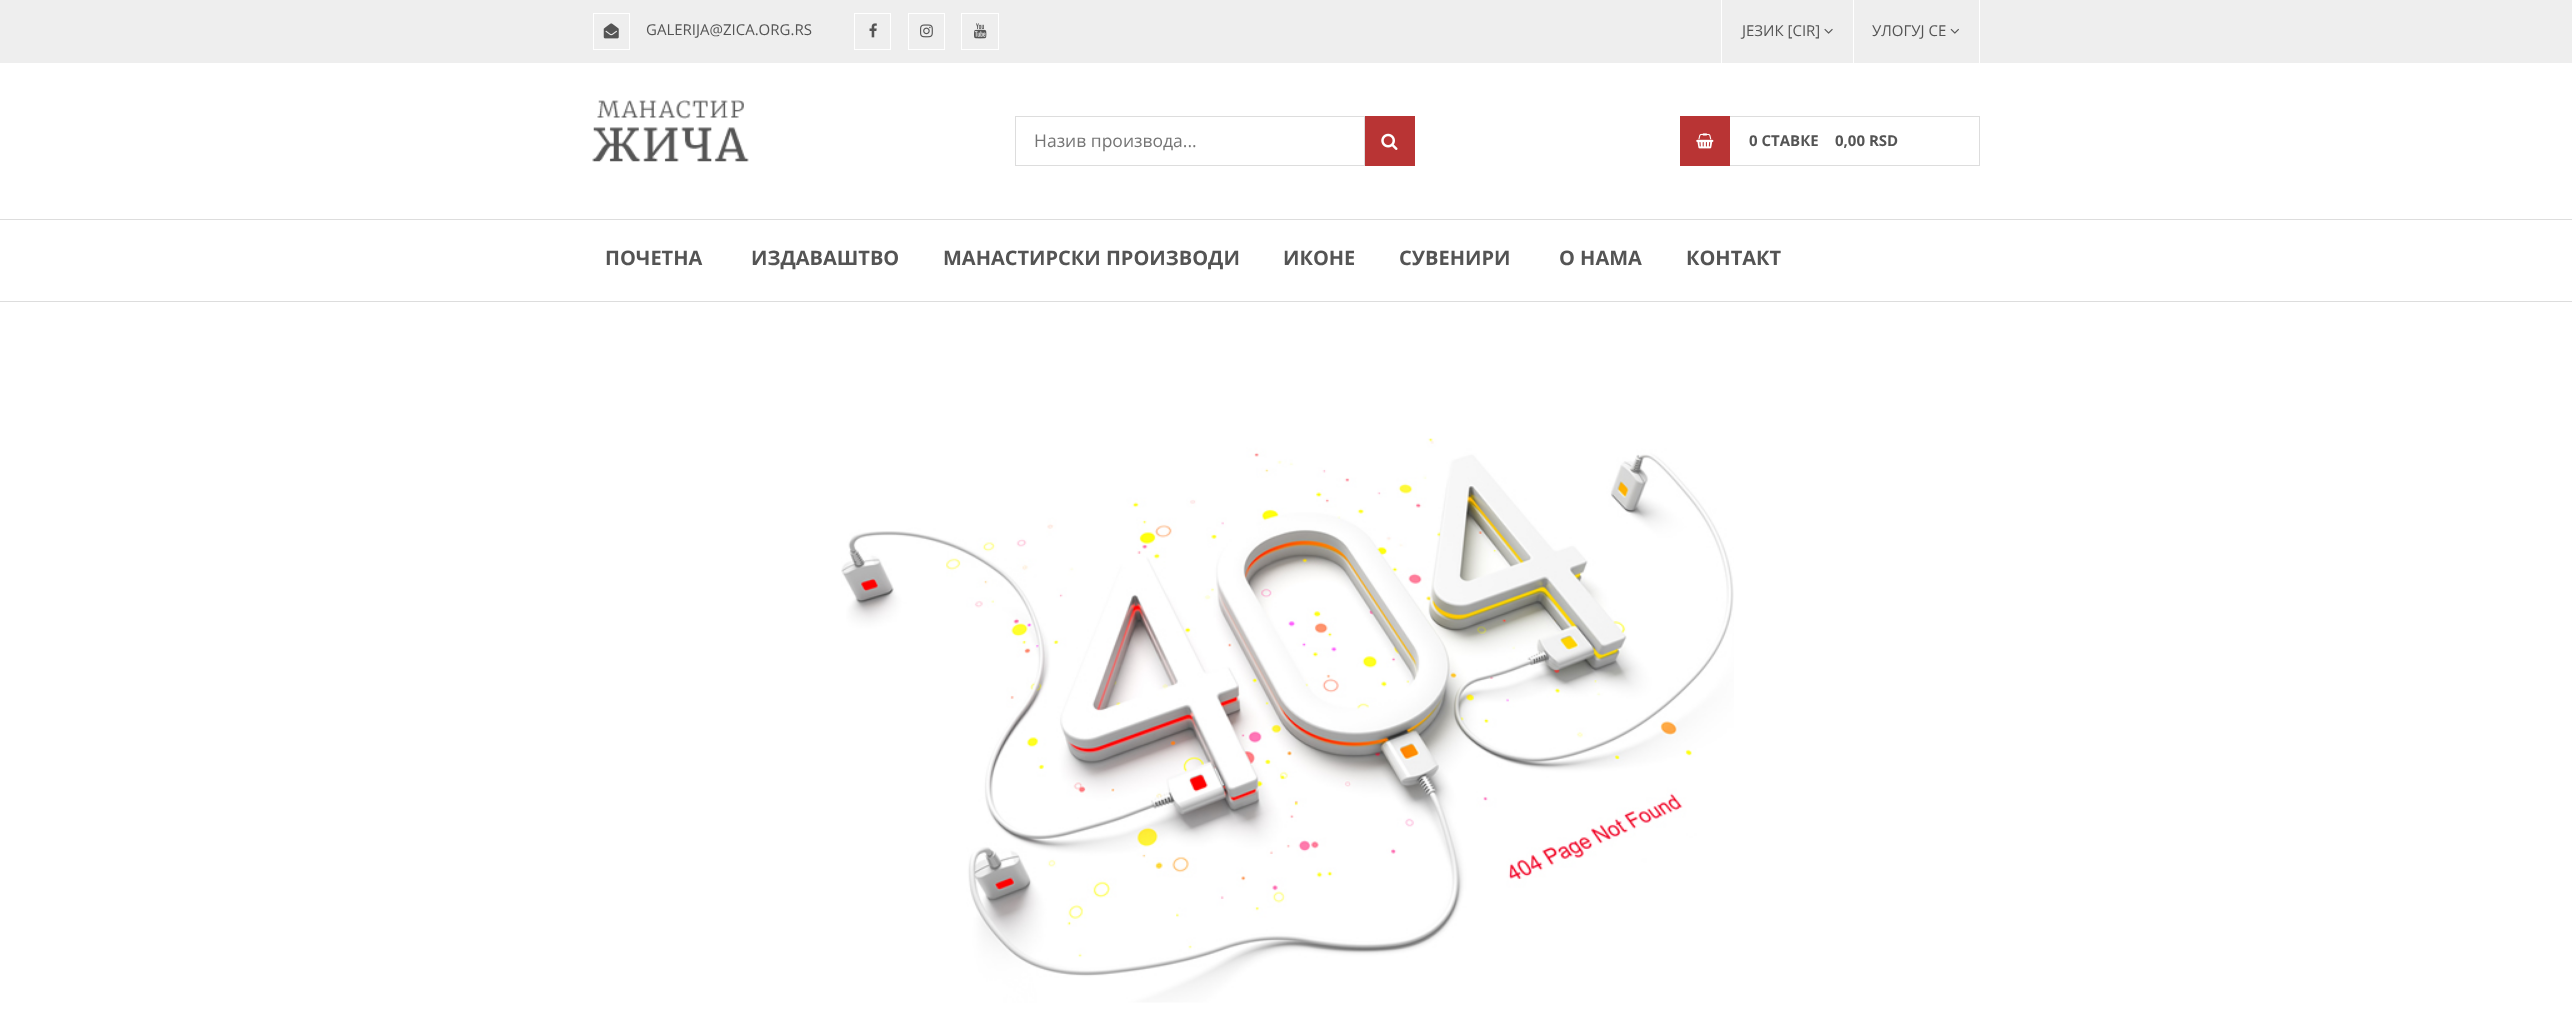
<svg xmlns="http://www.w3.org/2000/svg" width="2572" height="1010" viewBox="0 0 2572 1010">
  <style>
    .t1 { font: 15px Open Sans; fill: #545454; }
    .t2 { font: 17.5px Open Sans; fill: #757575; }
    .t3 { font: bold 15px Open Sans; fill: #545454; }
    .t4 { font: bold 20px Open Sans; fill: #545454; }
  </style>
  <rect width="100%" height="100%" fill="#fff"/>
  <rect x="0" y="0" width="2572" height="63" fill="#eee"/>
  <rect x="593.5" y="13.5" width="36" height="36" fill="none" stroke="#fff"/>
  <image x="603" y="23" width="16" height="16" href="images/1.png"/>
  <text x="646" y="35" class="t1">GALERIJA@ZICA.ORG.RS</text>
  <rect x="854.5" y="13.5" width="36" height="36" fill="none" stroke="#fff"/>
  <image x="869" y="23" width="8" height="15" href="images/2.png"/>
  <rect x="908.5" y="13.5" width="36" height="36" fill="none" stroke="#fff"/>
  <image x="920" y="24" width="13" height="14" href="images/3.png"/>
  <rect x="961.5" y="13.5" width="37" height="36" fill="none" stroke="#fff"/>
  <image x="974" y="23" width="13" height="16" href="images/4.png"/>
  <rect x="1721" y="0" width="1" height="63" fill="#fff"/>
  <text x="1742" y="36" class="t1">ЈЕЗИК [CIR]</text>
  <image x="1824" y="28" width="9" height="6" href="images/5.png"/>
  <rect x="1979" y="0" width="1" height="63" fill="#fff"/>
  <rect x="1853" y="0" width="1" height="63" fill="#fff"/>
  <text x="1872" y="36" class="t1">УЛОГУЈ СЕ</text>
  <image x="1950" y="28" width="9" height="6" href="images/6.png"/>
  <image x="592" y="100" width="157" height="62" href="images/7.png"/>
  <rect x="1015.5" y="116.5" width="349" height="49" fill="none" stroke="#ddd"/>
  <text x="1034" y="147" class="t2">Назив производа...</text>
  <rect x="1365" y="116" width="50" height="50" fill="#b93434"/>
  <image x="1381" y="133" width="17" height="17" href="images/8.png"/>
  <rect x="1680" y="116" width="50" height="50" fill="#b93434"/>
  <image x="1696" y="133" width="18" height="16" href="images/9.png"/>
  <rect x="1730" y="116" width="250" height="1" fill="#ddd"/>
  <rect x="1979" y="116" width="1" height="50" fill="#ddd"/>
  <rect x="1730" y="165" width="250" height="1" fill="#ddd"/>
  <text x="1749" y="146" class="t3">0 СТАВКЕ</text>
  <text x="1835" y="146" class="t3">0,00 RSD</text>
  <rect x="0" y="219" width="2572" height="1" fill="#ddd"/>
  <rect x="0" y="301" width="2572" height="1" fill="#ddd"/>
  <text x="605" y="265" class="t4">ПОЧЕТНА</text>
  <text x="751" y="265" class="t4">ИЗДАВАШТВО</text>
  <text x="943" y="265" class="t4">МАНАСТИРСКИ ПРОИЗВОДИ</text>
  <text x="1283" y="265" class="t4">ИКОНЕ</text>
  <text x="1399" y="265" class="t4">СУВЕНИРИ</text>
  <text x="1559" y="265" class="t4">О НАМА</text>
  <text x="1686" y="265" class="t4">КОНТАКТ</text>
  <image x="841" y="438" width="893" height="565" href="images/10.png"/>
</svg>
